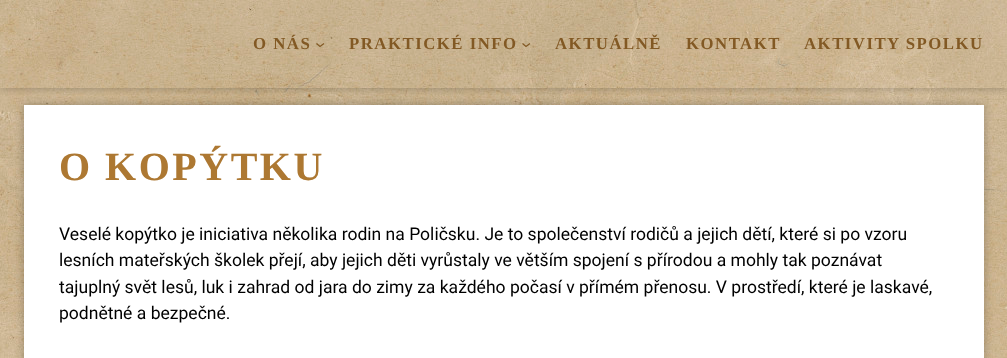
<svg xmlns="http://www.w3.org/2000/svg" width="1007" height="358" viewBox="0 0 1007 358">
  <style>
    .t1 { font: bold 16.75px Liberation Serif; letter-spacing: 1.5px; fill: #825924; }
    .t2 { font: bold 40px Liberation Serif; letter-spacing: 2.5px; fill: #ad7832; }
    .t3 { font: 17.55px Roboto; fill: #000; }
  </style>
  <defs>
    <clipPath id="clip1"><rect x="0" y="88" width="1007" height="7"/></clipPath>
  </defs>
  <rect width="100%" height="100%" fill="#fff"/>
  <image x="0" y="0" width="1007" height="358" href="images/1.png"/>
  <g clip-path="url(#clip1)">
    <rect x="0" y="0" width="1007" height="88" fill="#00000042" filter="blur(5px)"/>
  </g>
  <text x="253" y="49" class="t1">O NÁS</text>
  <path d="M316.5 43.5L320 46.5L324 43.5" fill="none" stroke="#825924" stroke-width="1.3"/>
  <text x="349" y="49" class="t1">PRAKTICKÉ INFO</text>
  <path d="M522.5 43.5L526 46.5L530 43.5" fill="none" stroke="#825924" stroke-width="1.3"/>
  <text x="555" y="49" class="t1">AKTUÁLNĚ</text>
  <text x="686" y="49" class="t1">KONTAKT</text>
  <text x="804" y="49" class="t1">AKTIVITY SPOLKU</text>
  <rect x="24" y="105" width="960" height="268" fill="#00000042" filter="blur(5px)"/>
  <rect x="24" y="105" width="960" height="253" fill="#fff"/>
  <text x="59" y="180" class="t2">O KOPÝTKU</text>
  <text x="59" y="240" class="t3">Veselé kopýtko je iniciativa několika rodin na Poličsku. Je to společenství rodičů a jejich dětí, které si po vzoru</text>
  <text x="59" y="266" class="t3">lesních mateřských školek přejí, aby jejich děti vyrůstaly ve větším spojení s přírodou a mohly tak poznávat</text>
  <text x="59" y="293" class="t3">tajuplný svět lesů, luk i zahrad od jara do zimy za každého počasí v přímém přenosu. V prostředí, které je laskavé,</text>
  <text x="59" y="319" class="t3">podnětné a bezpečné.</text>
</svg>
